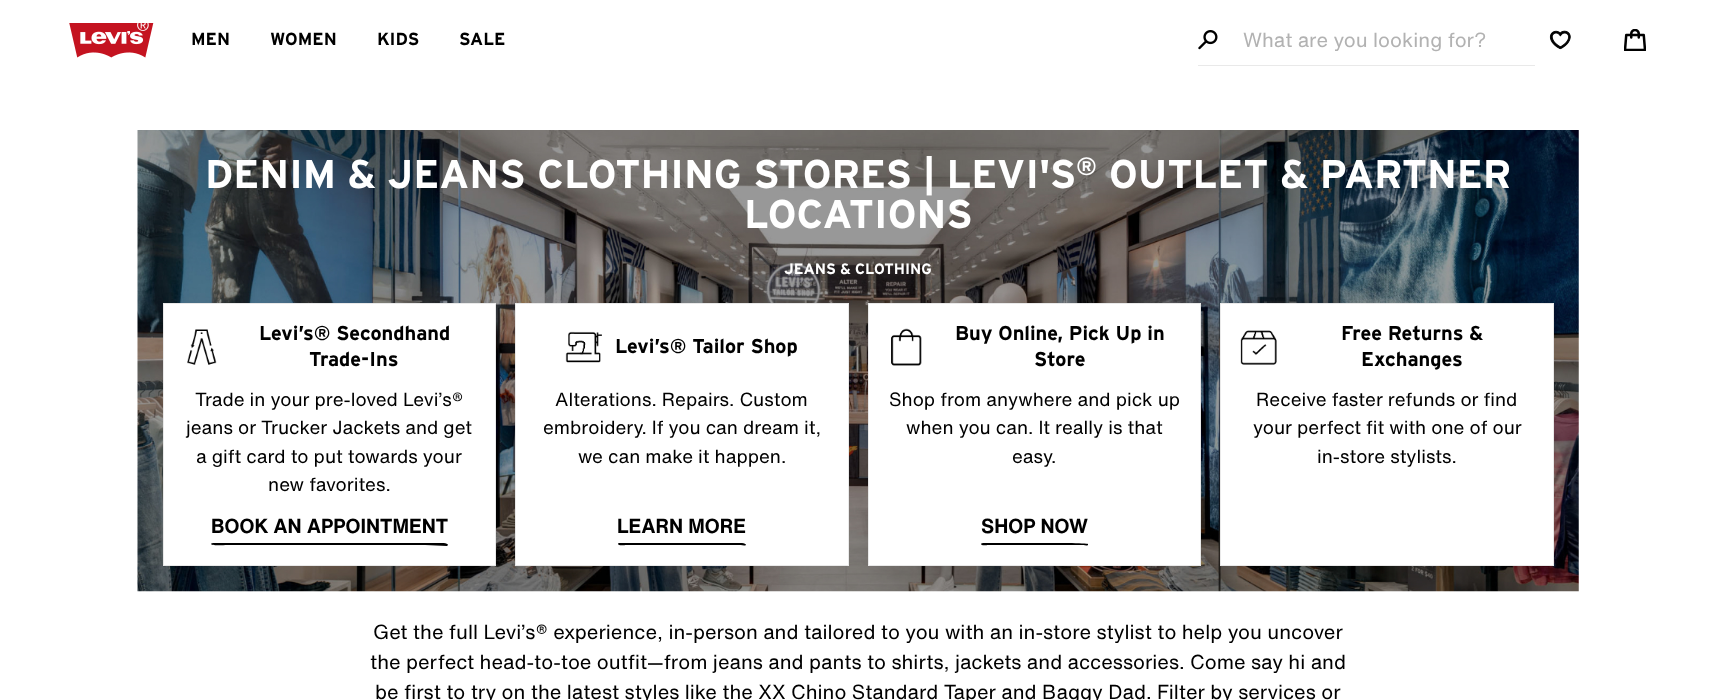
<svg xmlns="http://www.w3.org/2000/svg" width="1716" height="700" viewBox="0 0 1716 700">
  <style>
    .t1 { font: bold 17.5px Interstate; fill: #000; }
    .t2 { font: 20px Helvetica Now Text; fill: #b2b2b2; }
    .t3 { font: bold 40px Interstate; fill: #fff; }
    .t4 { font: bold 25px Interstate; fill: #fff; }
    .t5 { font: bold 15px Interstate; fill: #fff; }
    .t6 { font: bold 20px Interstate; fill: #000; }
    .t7 { font: 18.75px Helvetica Now Text; fill: #000; }
    .t8 { font: bold 20px Helvetica Now Text; fill: #000; }
    .t9 { font: 20px Helvetica Now Text; fill: #000; }
  </style>
  <defs>
    <clipPath id="clip1"><rect x="211" y="543" width="237" height="4"/></clipPath>
    <clipPath id="clip2"><rect x="618" y="543" width="128" height="4"/></clipPath>
    <clipPath id="clip3"><rect x="981" y="543" width="107" height="4"/></clipPath>
  </defs>
  <rect width="100%" height="100%" fill="#fff"/>
  <image x="69" y="23" width="85" height="35" href="images/1.png"/>
  <text x="191" y="45" class="t1">MEN</text>
  <text x="270" y="45" class="t1">WOMEN</text>
  <text x="377" y="45" class="t1">KIDS</text>
  <text x="459" y="45" class="t1">SALE</text>
  <image x="1198" y="30" width="20" height="20" href="images/2.png"/>
  <rect x="1198" y="65" width="337" height="1" fill="#e9e9e9"/>
  <text x="1243" y="47" class="t2">What are you looking for?</text>
  <image x="1549" y="30" width="22" height="20" href="images/3.png"/>
  <image x="1624" y="29" width="22" height="22" href="images/4.png"/>
  <image x="137" y="130" width="1442" height="462" href="images/5.png"/>
  <text x="205" y="188" class="t3">DENIM &amp; JEANS CLOTHING STORES | LEVI'S</text>
  <text x="1076" y="175" class="t4">®</text>
  <text x="1109" y="188" class="t3">OUTLET &amp; PARTNER</text>
  <text x="744" y="228" class="t3">LOCATIONS</text>
  <text x="784" y="274" class="t5">JEANS &amp; CLOTHING</text>
  <rect x="163.5" y="303.5" width="332" height="262" fill="#fff" stroke="#e9e9e9"/>
  <image x="187" y="329" width="30" height="36" href="images/6.png"/>
  <text x="259" y="340" class="t6">Levi’s® Secondhand</text>
  <text x="309" y="366" class="t6">Trade-Ins</text>
  <text x="195" y="406" class="t7">Trade in your pre-loved Levi’s®</text>
  <text x="186" y="434" class="t7">jeans or Trucker Jackets and get</text>
  <text x="196" y="463" class="t7">a gift card to put towards your</text>
  <text x="268" y="491" class="t7">new favorites.</text>
  <text x="211" y="533" class="t8">BOOK AN APPOINTMENT</text>
  <g clip-path="url(#clip1)">
    <path d="M448 545L447 546L425 545H227C224 545 211 546 211 544C211 543 213 543 214 543H435C436 543 448 542 448 545Z" fill="#000"/>
  </g>
  <rect x="515.5" y="303.5" width="333" height="262" fill="#fff" stroke="#e9e9e9"/>
  <image x="565" y="331" width="37" height="32" href="images/7.png"/>
  <text x="615" y="353" class="t6">Levi’s® Tailor Shop</text>
  <text x="555" y="406" class="t7">Alterations. Repairs. Custom</text>
  <text x="543" y="434" class="t7">embroidery. If you can dream it,</text>
  <text x="578" y="463" class="t7">we can make it happen.</text>
  <text x="617" y="533" class="t8">LEARN MORE</text>
  <g clip-path="url(#clip2)">
    <path d="M746 545C746 546 739 545 738 545H626C625 545 618 546 618 544C617 542 630 543 631 543H733C735 543 746 542 746 545Z" fill="#000"/>
  </g>
  <rect x="868.5" y="303.5" width="332" height="262" fill="#fff" stroke="#e9e9e9"/>
  <image x="891" y="328" width="31" height="38" href="images/8.png"/>
  <text x="955" y="340" class="t6">Buy Online, Pick Up in</text>
  <text x="1034" y="366" class="t6">Store</text>
  <text x="889" y="406" class="t7">Shop from anywhere and pick up</text>
  <text x="906" y="434" class="t7">when you can. It really is that</text>
  <text x="1012" y="463" class="t7">easy.</text>
  <text x="981" y="533" class="t8">SHOP NOW</text>
  <g clip-path="url(#clip3)">
    <path d="M1088 545C1088 546 1082 545 1081 545H988C987 545 981 546 981 544C981 543 983 543 984 543H1019C1024 542 1087 543 1088 544Z" fill="#000"/>
  </g>
  <rect x="1220.5" y="303.5" width="333" height="262" fill="#fff" stroke="#e9e9e9"/>
  <image x="1240" y="330" width="37" height="35" href="images/9.png"/>
  <text x="1341" y="340" class="t6">Free Returns &amp;</text>
  <text x="1361" y="366" class="t6">Exchanges</text>
  <text x="1256" y="406" class="t7">Receive faster refunds or find</text>
  <text x="1253" y="434" class="t7">your perfect fit with one of our</text>
  <text x="1317" y="463" class="t7">in-store stylists.</text>
  <text x="373" y="639" class="t9">Get the full Levi’s® experience, in-person and tailored to you with an in-store stylist to help you uncover</text>
  <text x="370" y="669" class="t9">the perfect head-to-toe outfit—from jeans and pants to shirts, jackets and accessories. Come say hi and</text>
  <text x="375" y="699" class="t9">be first to try on the latest styles like the XX Chino Standard Taper and Baggy Dad. Filter by services or</text>
</svg>
